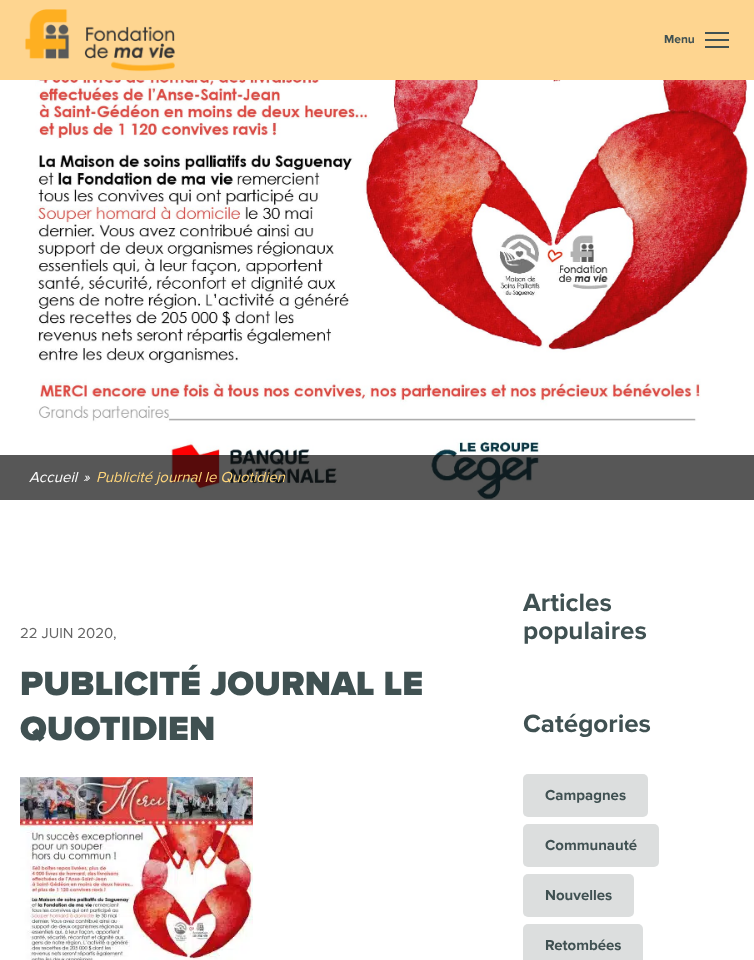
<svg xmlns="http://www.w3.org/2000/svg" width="754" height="960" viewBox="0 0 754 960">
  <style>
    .t1 { font: 12px 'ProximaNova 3'; fill: #405152; }
    .t2 { font: italic 15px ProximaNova; fill: #fff; }
    .t3 { font: italic 15px ProximaNova; fill: #fed57b; }
    .t4 { font: 15px ProximaNova; fill: #666; }
    .t5 { font: 35px 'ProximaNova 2'; fill: #405152; }
    .t6 { font: 26px 'ProximaNova 3'; fill: #405152; }
    .t7 { font: 15px 'ProximaNova 3'; fill: #405152; }
  </style>
  <rect width="100%" height="100%" fill="#fff"/>
  <rect x="0" y="0" width="754" height="80" fill="#fed590"/>
  <image x="25" y="9" width="150" height="63" href="images/1.png"/>
  <text x="664" y="43" class="t1">Menu</text>
  <rect x="705" y="32" width="24" height="2" fill="#405152"/>
  <rect x="705" y="39" width="24" height="2" fill="#405152"/>
  <rect x="705" y="46" width="24" height="2" fill="#405152"/>
  <image x="35" y="80" width="714" height="420" href="images/2.png"/>
  <rect x="0" y="455" width="754" height="45" fill="#0f0f0fb3"/>
  <text x="29" y="482" class="t2">Accueil</text>
  <text x="83" y="482" class="t2">»</text>
  <text x="96" y="482" class="t3">Publicité journal le Quotidien</text>
  <text x="20" y="638" class="t4">22 JUIN 2020</text>
  <text x="113" y="638" class="t4">,</text>
  <text x="20" y="695" class="t5">PUBLICITÉ JOURNAL LE</text>
  <text x="20" y="740" class="t5">QUOTIDIEN</text>
  <image x="20" y="777" width="233" height="183" href="images/3.png"/>
  <text x="523" y="611" class="t6">Articles</text>
  <text x="523" y="639" class="t6">populaires</text>
  <text x="523" y="732" class="t6">Catégories</text>
  <rect x="523" y="774" width="125" height="43" rx="5" fill="#dcdede"/>
  <text x="545" y="800" class="t7">Campagnes</text>
  <rect x="523" y="824" width="136" height="43" rx="5" fill="#dcdede"/>
  <text x="545" y="850" class="t7">Communauté</text>
  <rect x="523" y="874" width="111" height="43" rx="5" fill="#dcdede"/>
  <text x="545" y="900" class="t7">Nouvelles</text>
  <rect x="523" y="924" width="120" height="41" rx="5" fill="#dcdede"/>
  <text x="545" y="950" class="t7">Retombées</text>
</svg>
